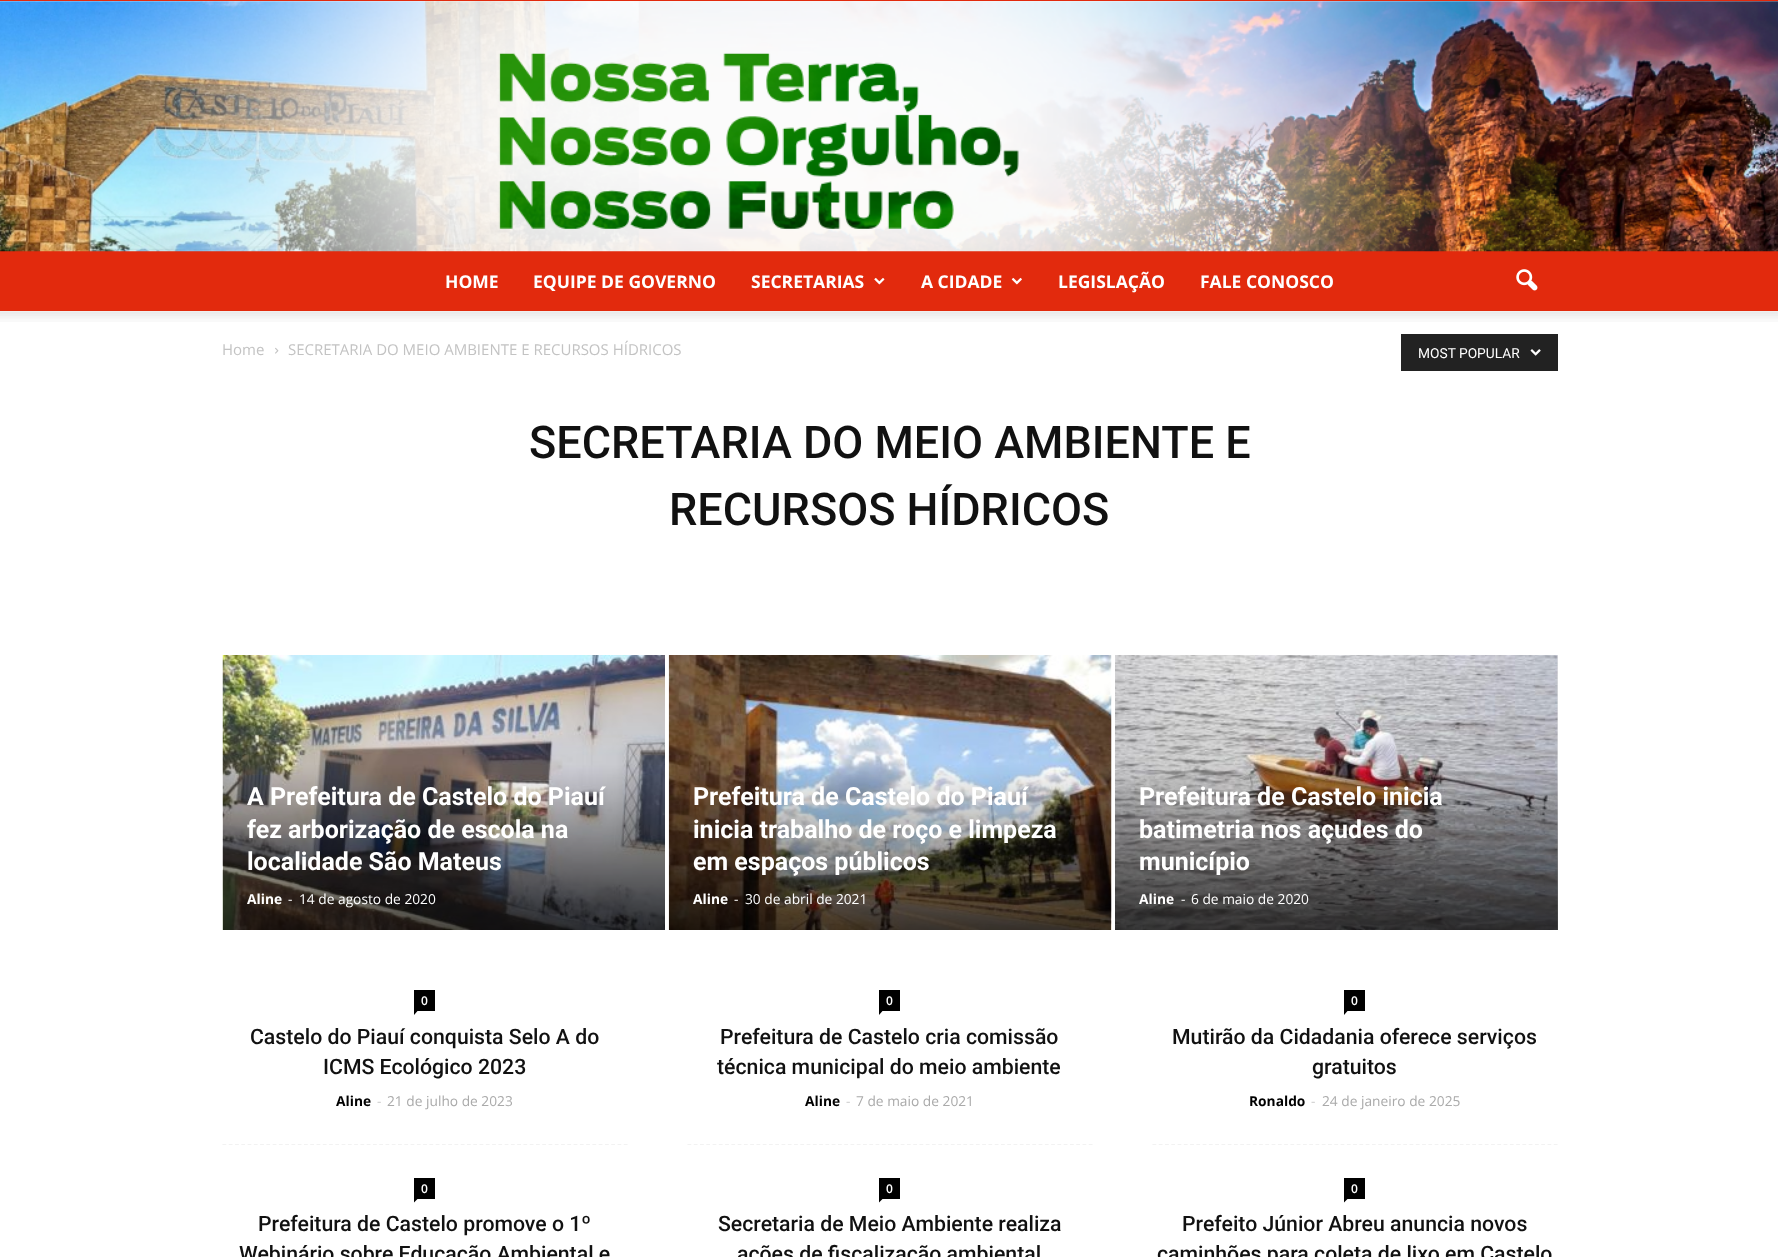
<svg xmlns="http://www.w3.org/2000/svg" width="1778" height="1257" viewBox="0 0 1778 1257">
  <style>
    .t1 { font: bold 17.5px Open Sans; fill: #fff; }
    .t2 { font: 15px Open Sans; fill: #c3c3c3; }
    .t3 { font: 13.75px Roboto; fill: #fff; }
    .t4 { font: 500 45px Roboto; fill: #111; }
    .t5 { font: bold 25px Roboto; fill: #fff; }
    .t6 { font: bold 13.75px Open Sans; fill: #fff; }
    .t7 { font: 13.75px Open Sans; fill: #fff; }
    .t8 { font: 600 12px Open Sans; fill: #fff; }
    .t9 { font: 500 21.25px Roboto; fill: #111; }
    .t10 { font: bold 13.75px Open Sans; fill: #000; }
    .t11 { font: 13.75px Open Sans; fill: #ccc; }
    .t12 { font: 13.75px Open Sans; fill: #aaa; }
  </style>
  <defs>
    <linearGradient id="g1" gradientUnits="userSpaceOnUse" x1="1336" y1="655" x2="1336" y2="930"><stop offset="0.4" stop-color="#000" stop-opacity="0"/><stop offset="1" stop-color="#000" stop-opacity="0.7"/></linearGradient>
  </defs>
  <rect width="100%" height="100%" fill="#fff"/>
  <rect x="0" y="0" width="1778" height="1" fill="#e22a0d"/>
  <rect x="0" y="251" width="1778" height="60" fill="#e22a0d"/>
  <image x="0" y="1" width="1778" height="251" href="images/1.png"/>
  <text x="445" y="288" class="t1">HOME</text>
  <text x="533" y="288" class="t1">EQUIPE DE GOVERNO</text>
  <text x="751" y="288" class="t1">SECRETARIAS</text>
  <image x="874" y="277" width="11" height="8" href="images/2.png"/>
  <text x="921" y="288" class="t1">A CIDADE</text>
  <image x="1011" y="277" width="11" height="8" href="images/3.png"/>
  <text x="1058" y="288" class="t1">LEGISLAÇÃO</text>
  <text x="1200" y="288" class="t1">FALE CONOSCO</text>
  <image x="1516" y="269" width="22" height="22" href="images/4.png"/>
  <image x="0" y="311" width="1778" height="11" href="images/5.png"/>
  <text x="222" y="355" class="t2">Home</text>
  <image x="275" y="347" width="4" height="7" href="images/6.png"/>
  <text x="288" y="355" class="t2">SECRETARIA DO MEIO AMBIENTE E RECURSOS HÍDRICOS</text>
  <rect x="1401" y="334" width="157" height="37" fill="#222"/>
  <text x="1418" y="358" class="t3">MOST POPULAR</text>
  <image x="1530" y="349" width="11" height="7" href="images/7.png"/>
  <text x="529" y="458" class="t4">SECRETARIA DO MEIO AMBIENTE E</text>
  <text x="669" y="525" class="t4">RECURSOS HÍDRICOS</text>
  <image x="222" y="655" width="443" height="275" href="images/8.png"/>
  <text x="247" y="805" class="t5">A Prefeitura de Castelo do Piauí</text>
  <text x="247" y="838" class="t5">fez arborização de escola na</text>
  <text x="247" y="870" class="t5">localidade São Mateus</text>
  <text x="247" y="904" class="t6">Aline</text>
  <text x="288" y="904" class="t7">-</text>
  <text x="299" y="904" class="t7">14 de agosto de 2020</text>
  <image x="668" y="655" width="444" height="275" href="images/9.png"/>
  <text x="693" y="805" class="t5">Prefeitura de Castelo do Piauí</text>
  <text x="693" y="838" class="t5">inicia trabalho de roço e limpeza</text>
  <text x="693" y="870" class="t5">em espaços públicos</text>
  <text x="693" y="904" class="t6">Aline</text>
  <text x="734" y="904" class="t7">-</text>
  <text x="745" y="904" class="t7">30 de abril de 2021</text>
  <rect x="1557" y="655" width="1" height="275" fill="#e5e5e5"/>
  <image x="1115" y="655" width="443" height="275" href="images/10.png"/>
  <rect x="1115" y="770" width="443" height="160" fill="url(#g1)"/>
  <text x="1139" y="805" class="t5">Prefeitura de Castelo inicia</text>
  <text x="1139" y="838" class="t5">batimetria nos açudes do</text>
  <text x="1139" y="870" class="t5">município</text>
  <text x="1139" y="904" class="t6">Aline</text>
  <text x="1181" y="904" class="t7">-</text>
  <text x="1191" y="904" class="t7">6 de maio de 2020</text>
  <path d="M222.5 1144.5H627.5" fill="none" stroke="#f2f2f2" stroke-width="1.2" stroke-dasharray="3.75 2.52"/>
  <rect x="414" y="990" width="21" height="21" fill="#000"/>
  <text x="421" y="1005" class="t8">0</text>
  <path d="M414 1011H417.5L414 1015Z" fill="#000"/>
  <text x="250" y="1044" class="t9">Castelo do Piauí conquista Selo A do</text>
  <text x="323" y="1074" class="t9">ICMS Ecológico 2023</text>
  <text x="336" y="1106" class="t10">Aline</text>
  <text x="377" y="1106" class="t11">-</text>
  <text x="387" y="1106" class="t12">21 de julho de 2023</text>
  <path d="M687.5 1144.5H1092.5" fill="none" stroke="#f2f2f2" stroke-width="1.2" stroke-dasharray="3.75 2.52"/>
  <rect x="879" y="990" width="21" height="21" fill="#000"/>
  <text x="886" y="1005" class="t8">0</text>
  <path d="M879 1011H882.5L879 1015Z" fill="#000"/>
  <text x="720" y="1044" class="t9">Prefeitura de Castelo cria comissão</text>
  <text x="717" y="1074" class="t9">técnica municipal do meio ambiente</text>
  <text x="805" y="1106" class="t10">Aline</text>
  <text x="846" y="1106" class="t11">-</text>
  <text x="856" y="1106" class="t12">7 de maio de 2021</text>
  <path d="M1152.5 1144.5H1557.5" fill="none" stroke="#f2f2f2" stroke-width="1.2" stroke-dasharray="3.75 2.52"/>
  <rect x="1344" y="990" width="21" height="21" fill="#000"/>
  <text x="1351" y="1005" class="t8">0</text>
  <path d="M1344 1011H1347.5L1344 1015Z" fill="#000"/>
  <text x="1172" y="1044" class="t9">Mutirão da Cidadania oferece serviços</text>
  <text x="1312" y="1074" class="t9">gratuitos</text>
  <text x="1249" y="1106" class="t10">Ronaldo</text>
  <text x="1311" y="1106" class="t11">-</text>
  <text x="1322" y="1106" class="t12">24 de janeiro de 2025</text>
  <rect x="414" y="1178" width="21" height="21" fill="#000"/>
  <text x="421" y="1193" class="t8">0</text>
  <path d="M414 1199H417.5L414 1202.5Z" fill="#000"/>
  <text x="258" y="1231" class="t9">Prefeitura de Castelo promove o 1º</text>
  <text x="239" y="1261" class="t9">Webinário sobre Educação Ambiental e</text>
  <rect x="879" y="1178" width="21" height="21" fill="#000"/>
  <text x="886" y="1193" class="t8">0</text>
  <path d="M879 1199H882.5L879 1202.5Z" fill="#000"/>
  <text x="718" y="1231" class="t9">Secretaria de Meio Ambiente realiza</text>
  <text x="737" y="1261" class="t9">ações de fiscalização ambiental</text>
  <rect x="1344" y="1178" width="21" height="21" fill="#000"/>
  <text x="1351" y="1193" class="t8">0</text>
  <path d="M1344 1199H1347.5L1344 1202.5Z" fill="#000"/>
  <text x="1182" y="1231" class="t9">Prefeito Júnior Abreu anuncia novos</text>
  <text x="1157" y="1261" class="t9">caminhões para coleta de lixo em Castelo</text>
</svg>
